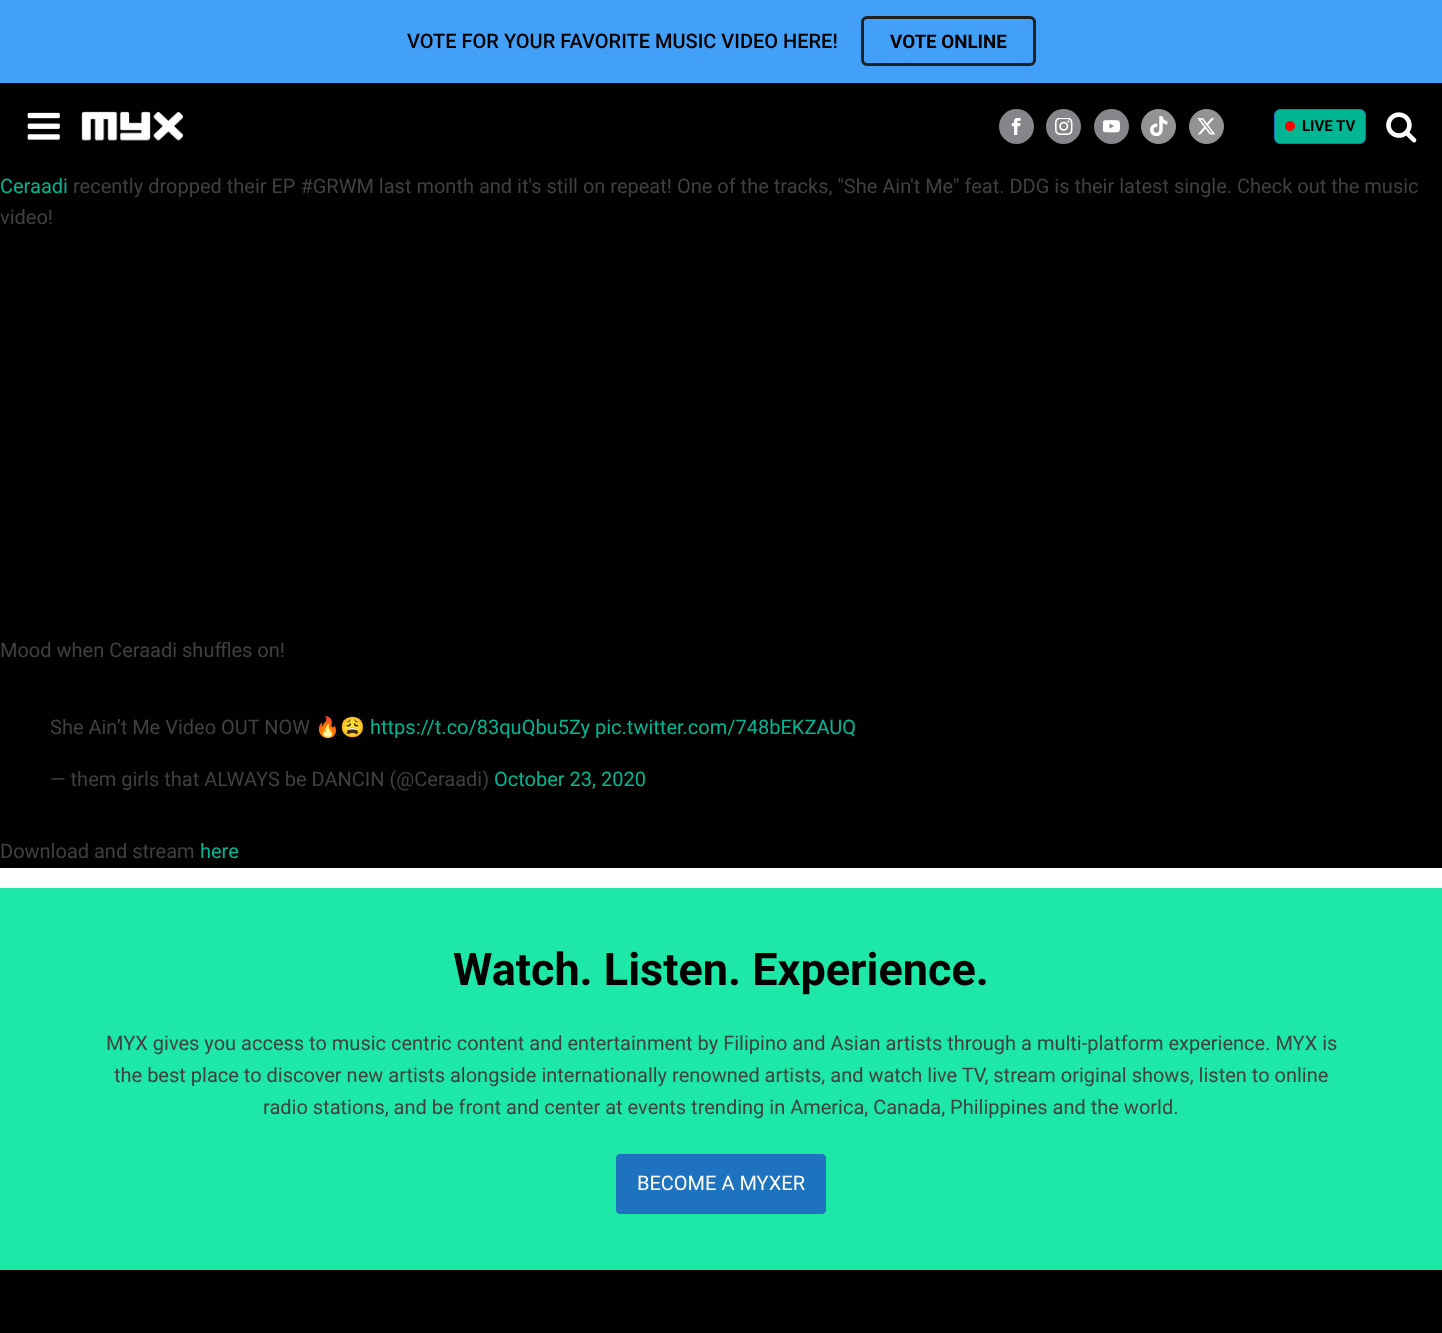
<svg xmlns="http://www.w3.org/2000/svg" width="1442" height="1333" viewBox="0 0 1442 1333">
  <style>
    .t1 { font: 500 20px Roboto; fill: #000; }
    .t2 { font: bold 18.75px Roboto; fill: #000; }
    .t3 { font: bold 15px Roboto; fill: #000; }
    .t4 { font: 20px Roboto; fill: #01b693; }
    .t5 { font: 20px Roboto; fill: #404040; }
    .t6 { font: 20px Noto Color Emoji; fill: #404040; }
    .t7 { font: bold 45px Roboto; fill: #000; }
    .t8 { font: 20px Roboto; fill: #fff; }
  </style>
  <rect width="100%" height="100%" fill="#fff"/>
  <rect x="0" y="0" width="1442" height="83" fill="#42a0f8"/>
  <text x="407" y="48" class="t1">VOTE FOR YOUR FAVORITE MUSIC VIDEO HERE!</text>
  <rect x="862.5" y="17.5" width="172" height="47" rx="4.5" fill="none" stroke="#1f2020" stroke-width="3"/>
  <text x="890" y="48" class="t2">VOTE ONLINE</text>
  <rect x="0" y="83" width="1442" height="785" fill="#000"/>
  <image x="27" y="112" width="33" height="28" href="images/1.png"/>
  <image x="81" y="111" width="103" height="30" href="images/2.png"/>
  <circle cx="1016.5" cy="126.5" r="17.5" fill="#858689"/>
  <image x="1011" y="118" width="10" height="17" href="images/3.png"/>
  <circle cx="1063.5" cy="126.5" r="17.5" fill="#858689"/>
  <image x="1055" y="118" width="18" height="17" href="images/4.png"/>
  <circle cx="1111.5" cy="126.5" r="17.5" fill="#858689"/>
  <image x="1103" y="120" width="17" height="13" href="images/5.png"/>
  <circle cx="1158.5" cy="126.5" r="17" fill="#939393" stroke="#939393"/>
  <image x="1150" y="116" width="18" height="20" href="images/6.png"/>
  <circle cx="1206.5" cy="126.5" r="17" fill="#939393" stroke="#939393"/>
  <image x="1197" y="118" width="19" height="17" href="images/7.png"/>
  <rect x="1274.5" y="109.5" width="91" height="34" rx="5.5" fill="#01b693" stroke="#1e73be"/>
  <circle cx="1290" cy="126" r="5" fill="#f00"/>
  <text x="1302" y="131" class="t3">LIVE TV</text>
  <image x="1386" y="112" width="31" height="31" href="images/8.png"/>
  <text x="0" y="193" class="t4">Ceraadi</text>
  <text x="73" y="193" class="t5">recently dropped their EP #GRWM last month and it's still on repeat! One of the tracks, "She Ain't Me" feat. DDG is their latest single. Check out the music</text>
  <text x="0" y="224" class="t5">video!</text>
  <text x="0" y="657" class="t5">Mood when Ceraadi shuffles on!</text>
  <text x="50" y="734" class="t5">She Ain’t Me Video OUT NOW</text>
  <text x="315" y="734" class="t6">🔥😩</text>
  <text x="370" y="734" class="t4">https://t.co/83quQbu5Zy pic.twitter.com/748bEKZAUQ</text>
  <text x="50" y="786" class="t5">— them girls that ALWAYS be DANCIN (@Ceraadi)</text>
  <text x="494" y="786" class="t4">October 23, 2020</text>
  <text x="0" y="858" class="t5">Download and stream</text>
  <text x="200" y="858" class="t4">here</text>
  <rect x="0" y="888" width="1442" height="382" fill="#1de8a8"/>
  <text x="453" y="985" class="t7">Watch. Listen. Experience.</text>
  <text x="106" y="1050" class="t5">MYX gives you access to music centric content and entertainment by Filipino and Asian artists through a multi-platform experience. MYX is</text>
  <text x="114" y="1082" class="t5">the best place to discover new artists alongside internationally renowned artists, and watch live TV, stream original shows, listen to online</text>
  <text x="263" y="1114" class="t5">radio stations, and be front and center at events trending in America, Canada, Philippines and the world.</text>
  <rect x="616.5" y="1154.5" width="209" height="59" rx="3.5" fill="#1e73be" stroke="#1e73be"/>
  <text x="637" y="1190" class="t8">BECOME A MYXER</text>
  <rect x="0" y="1270" width="1442" height="63" fill="#000"/>
</svg>
